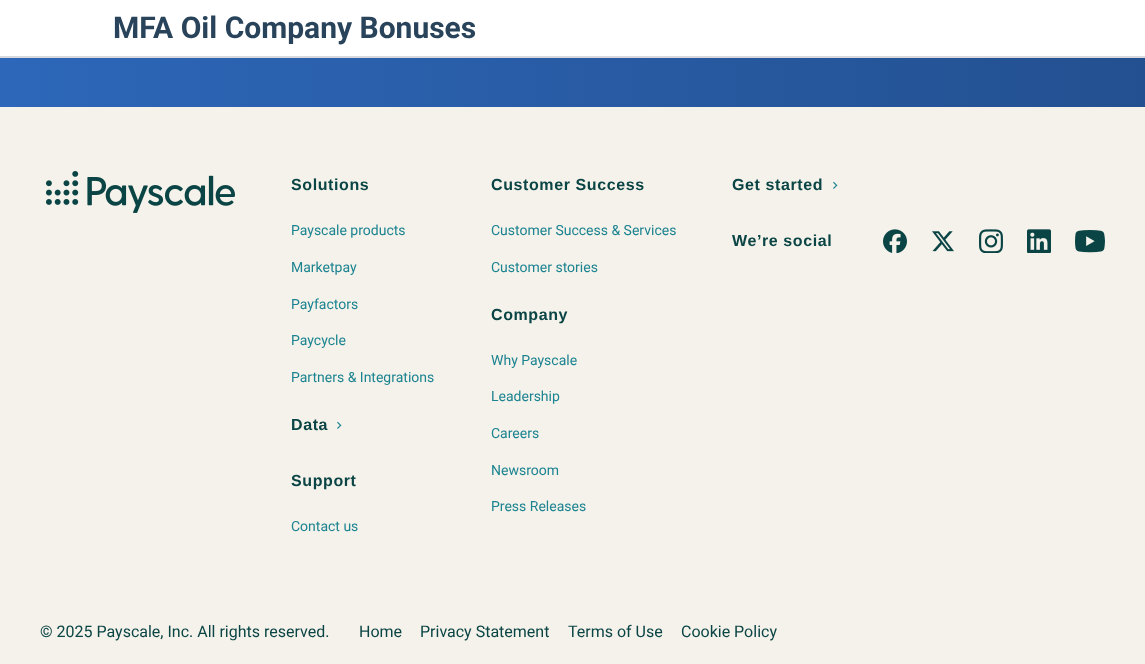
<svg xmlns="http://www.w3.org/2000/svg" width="1145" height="664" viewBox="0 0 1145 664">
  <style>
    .t1 { font: bold 30px Roboto; fill: #28435a; }
    .t2 { font: bold 16px Liberation Sans; letter-spacing: 0.6px; fill: #0a4444; }
    .t3 { font: 14px Roboto; fill: #1c8391; }
    .t4 { font: 16px Roboto; fill: #0a4444; }
  </style>
  <defs>
    <linearGradient id="g1" gradientUnits="userSpaceOnUse" x1="0" y1="-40" x2="1145" y2="-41"><stop offset="0" stop-color="#2d67b9"/><stop offset="1" stop-color="#235090"/></linearGradient>
  </defs>
  <rect width="100%" height="100%" fill="#fff"/>
  <rect x="0" y="56" width="1145" height="2" fill="#d9d9dd"/>
  <text x="113" y="38" class="t1">MFA Oil Company Bonuses</text>
  <rect x="0" y="58" width="1145" height="49" fill="url(#g1)"/>
  <rect x="0" y="107" width="1145" height="557" fill="#f4f2ea"/>
  <image x="46" y="171" width="189" height="42" href="images/1.png"/>
  <text x="291" y="190" class="t2">Solutions</text>
  <text x="291" y="235" class="t3">Payscale products</text>
  <text x="291" y="272" class="t3">Marketpay</text>
  <text x="291" y="309" class="t3">Payfactors</text>
  <text x="291" y="345" class="t3">Paycycle</text>
  <text x="291" y="382" class="t3">Partners &amp; Integrations</text>
  <text x="291" y="430" class="t2">Data</text>
  <image x="337" y="421" width="5" height="8" href="images/2.png"/>
  <text x="291" y="486" class="t2">Support</text>
  <text x="291" y="531" class="t3">Contact us</text>
  <text x="491" y="190" class="t2">Customer Success</text>
  <text x="491" y="235" class="t3">Customer Success &amp; Services</text>
  <text x="491" y="272" class="t3">Customer stories</text>
  <text x="491" y="320" class="t2">Company</text>
  <text x="491" y="365" class="t3">Why Payscale</text>
  <text x="491" y="401" class="t3">Leadership</text>
  <text x="491" y="438" class="t3">Careers</text>
  <text x="491" y="475" class="t3">Newsroom</text>
  <text x="491" y="511" class="t3">Press Releases</text>
  <text x="732" y="190" class="t2">Get started</text>
  <image x="833" y="181" width="5" height="8" href="images/2.png"/>
  <text x="732" y="246" class="t2">We’re social</text>
  <image x="883" y="229" width="24" height="24" href="images/3.png"/>
  <image x="932" y="231" width="22" height="21" href="images/4.png"/>
  <image x="979" y="229" width="24" height="24" href="images/5.png"/>
  <image x="1027" y="229" width="24" height="24" href="images/6.png"/>
  <image x="1075" y="230" width="30" height="23" href="images/7.png"/>
  <text x="40" y="637" class="t4">© 2025 Payscale, Inc. All rights reserved.</text>
  <text x="359" y="637" class="t4">Home</text>
  <text x="420" y="637" class="t4">Privacy Statement</text>
  <text x="568" y="637" class="t4">Terms of Use</text>
  <text x="681" y="637" class="t4">Cookie Policy</text>
</svg>
